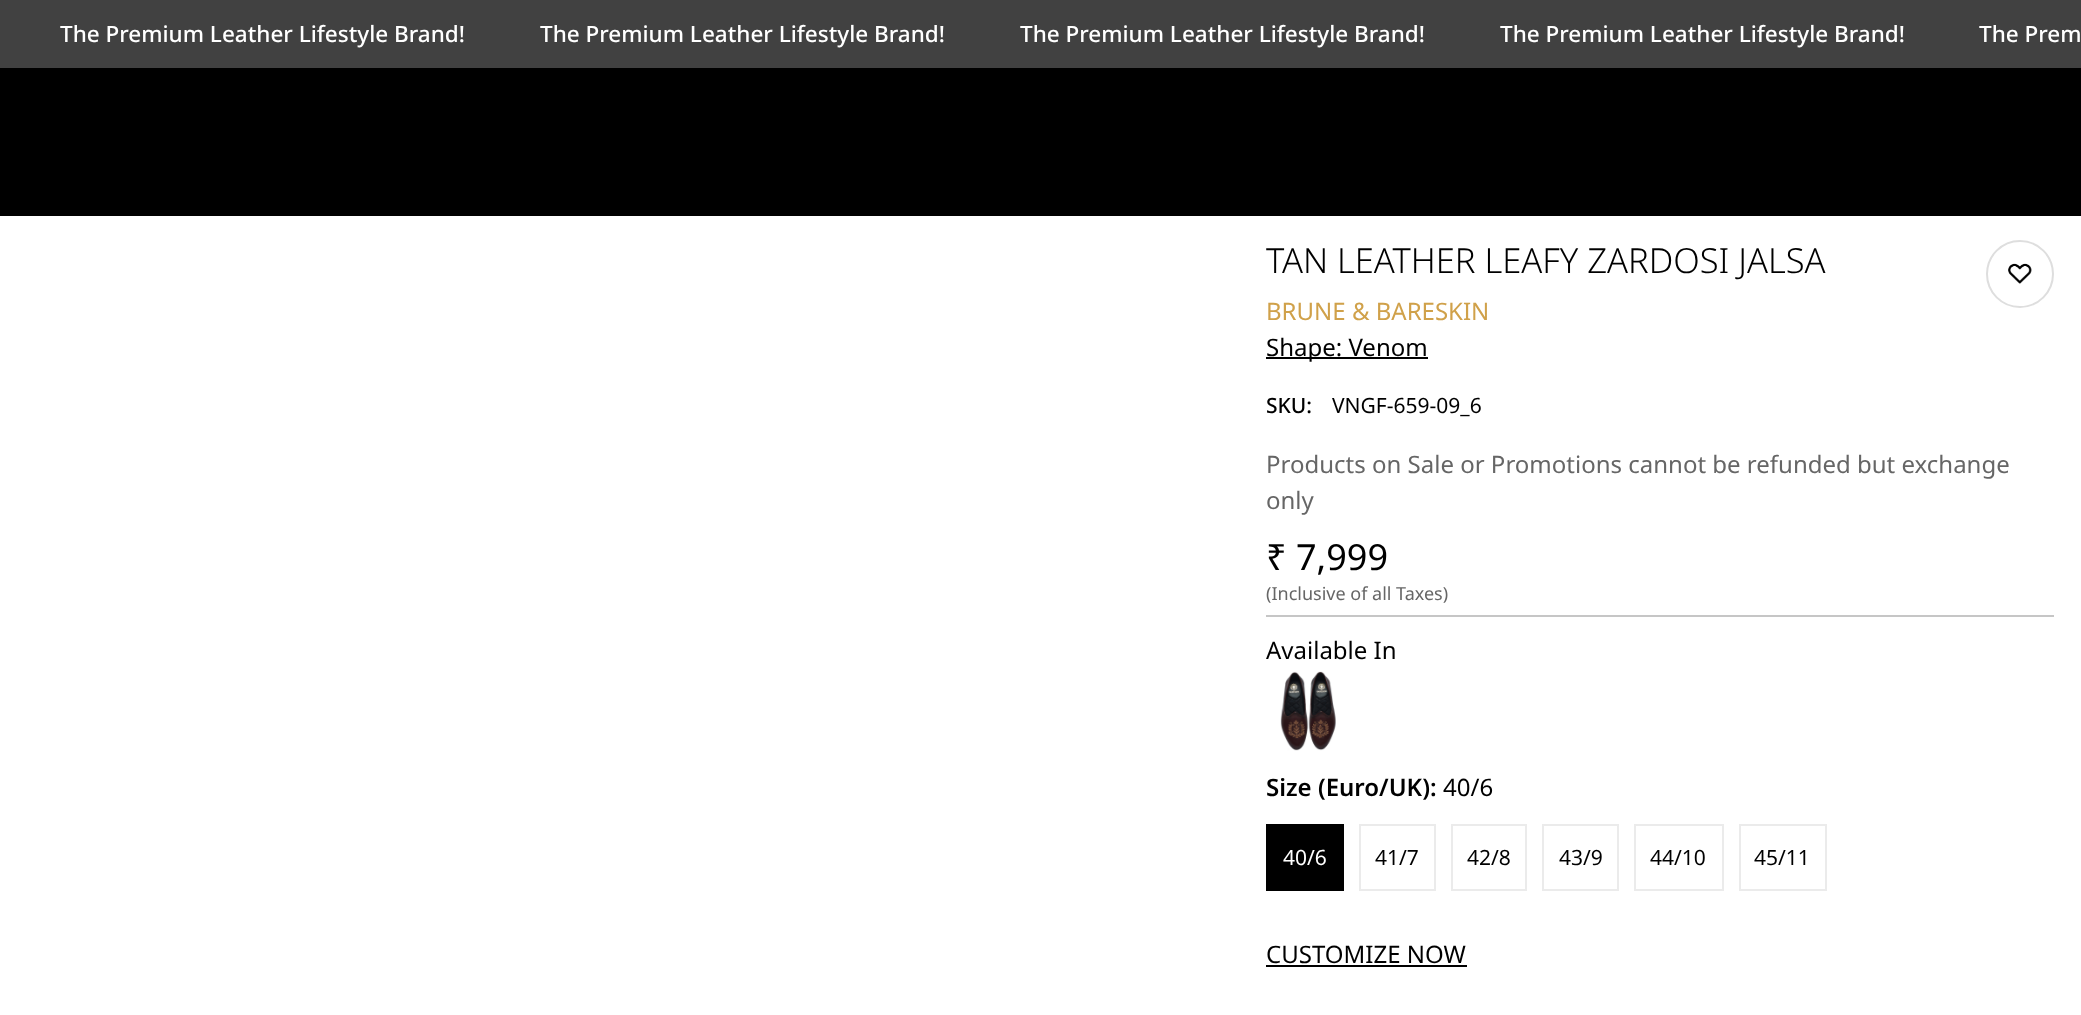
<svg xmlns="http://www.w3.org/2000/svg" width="2081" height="1015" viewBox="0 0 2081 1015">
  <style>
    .t1 { font: 500 22.5px Noto Sans; fill: #fff; }
    .t2 { font: 300 34.5px Noto Sans; fill: #000; }
    .t3 { font: 24px Noto Sans; fill: #d0a14a; }
    .t4 { font: 24px Noto Sans; fill: #000; }
    .t5 { font: 500 21px Noto Sans; fill: #000; }
    .t6 { font: 21px Noto Sans; fill: #000; }
    .t7 { font: 24px Noto Sans; fill: #666; }
    .t8 { font: 36px Noto Sans; fill: #000; }
    .t9 { font: 18px Noto Sans; fill: #666; }
    .t10 { font: 600 24px Noto Sans; fill: #000; }
    .t11 { font: 21px Noto Sans; fill: #fff; }
  </style>
  <rect width="100%" height="100%" fill="#fff"/>
  <rect x="0" y="0" width="2081" height="68" fill="#414141"/>
  <text x="60" y="42" class="t1">The Premium Leather Lifestyle Brand!</text>
  <text x="540" y="42" class="t1">The Premium Leather Lifestyle Brand!</text>
  <text x="1020" y="42" class="t1">The Premium Leather Lifestyle Brand!</text>
  <text x="1500" y="42" class="t1">The Premium Leather Lifestyle Brand!</text>
  <text x="1979" y="42" class="t1">The Prem</text>
  <rect x="0" y="68" width="2081" height="148" fill="#000"/>
  <text x="1266" y="273" class="t2">TAN LEATHER LEAFY ZARDOSI JALSA</text>
  <circle cx="2020" cy="274" r="33" fill="none" stroke="#dedede" stroke-width="2"/>
  <image x="2008" y="263" width="24" height="21" href="images/1.png"/>
  <text x="1266" y="320" class="t3">BRUNE &amp; BARESKIN</text>
  <rect x="1266" y="357" width="162" height="2" fill="#000"/>
  <text x="1266" y="356" class="t4">Shape: Venom</text>
  <text x="1266" y="413" class="t5">SKU:</text>
  <text x="1332" y="413" class="t6">VNGF-659-09_6</text>
  <text x="1266" y="473" class="t7">Products on Sale or Promotions cannot be refunded but exchange</text>
  <text x="1266" y="509" class="t7">only</text>
  <text x="1266" y="570" class="t8">₹ 7,999</text>
  <text x="1266" y="600" class="t9">(Inclusive of all Taxes)</text>
  <rect x="1266" y="615" width="788" height="2" fill="#c6c6c6"/>
  <text x="1266" y="659" class="t4">Available In</text>
  <image x="1280" y="671" width="56" height="80" href="images/2.png"/>
  <text x="1266" y="796" class="t10">Size (Euro/UK):</text>
  <text x="1443" y="796" class="t4">40/6</text>
  <rect x="1266" y="824" width="78" height="67" fill="#000"/>
  <text x="1283" y="865" class="t11">40/6</text>
  <rect x="1360" y="825" width="75" height="65" fill="none" stroke="#ebebeb" stroke-width="2"/>
  <text x="1375" y="865" class="t6">41/7</text>
  <rect x="1452" y="825" width="74" height="65" fill="none" stroke="#ebebeb" stroke-width="2"/>
  <text x="1467" y="865" class="t6">42/8</text>
  <rect x="1543" y="825" width="75" height="65" fill="none" stroke="#ebebeb" stroke-width="2"/>
  <text x="1559" y="865" class="t6">43/9</text>
  <rect x="1635" y="825" width="88" height="65" fill="none" stroke="#ebebeb" stroke-width="2"/>
  <text x="1650" y="865" class="t6">44/10</text>
  <rect x="1740" y="825" width="86" height="65" fill="none" stroke="#ebebeb" stroke-width="2"/>
  <text x="1754" y="865" class="t6">45/11</text>
  <text x="1266" y="963" class="t4">CUSTOMIZE NOW</text>
  <rect x="1266" y="965" width="201" height="2" fill="#000"/>
</svg>
